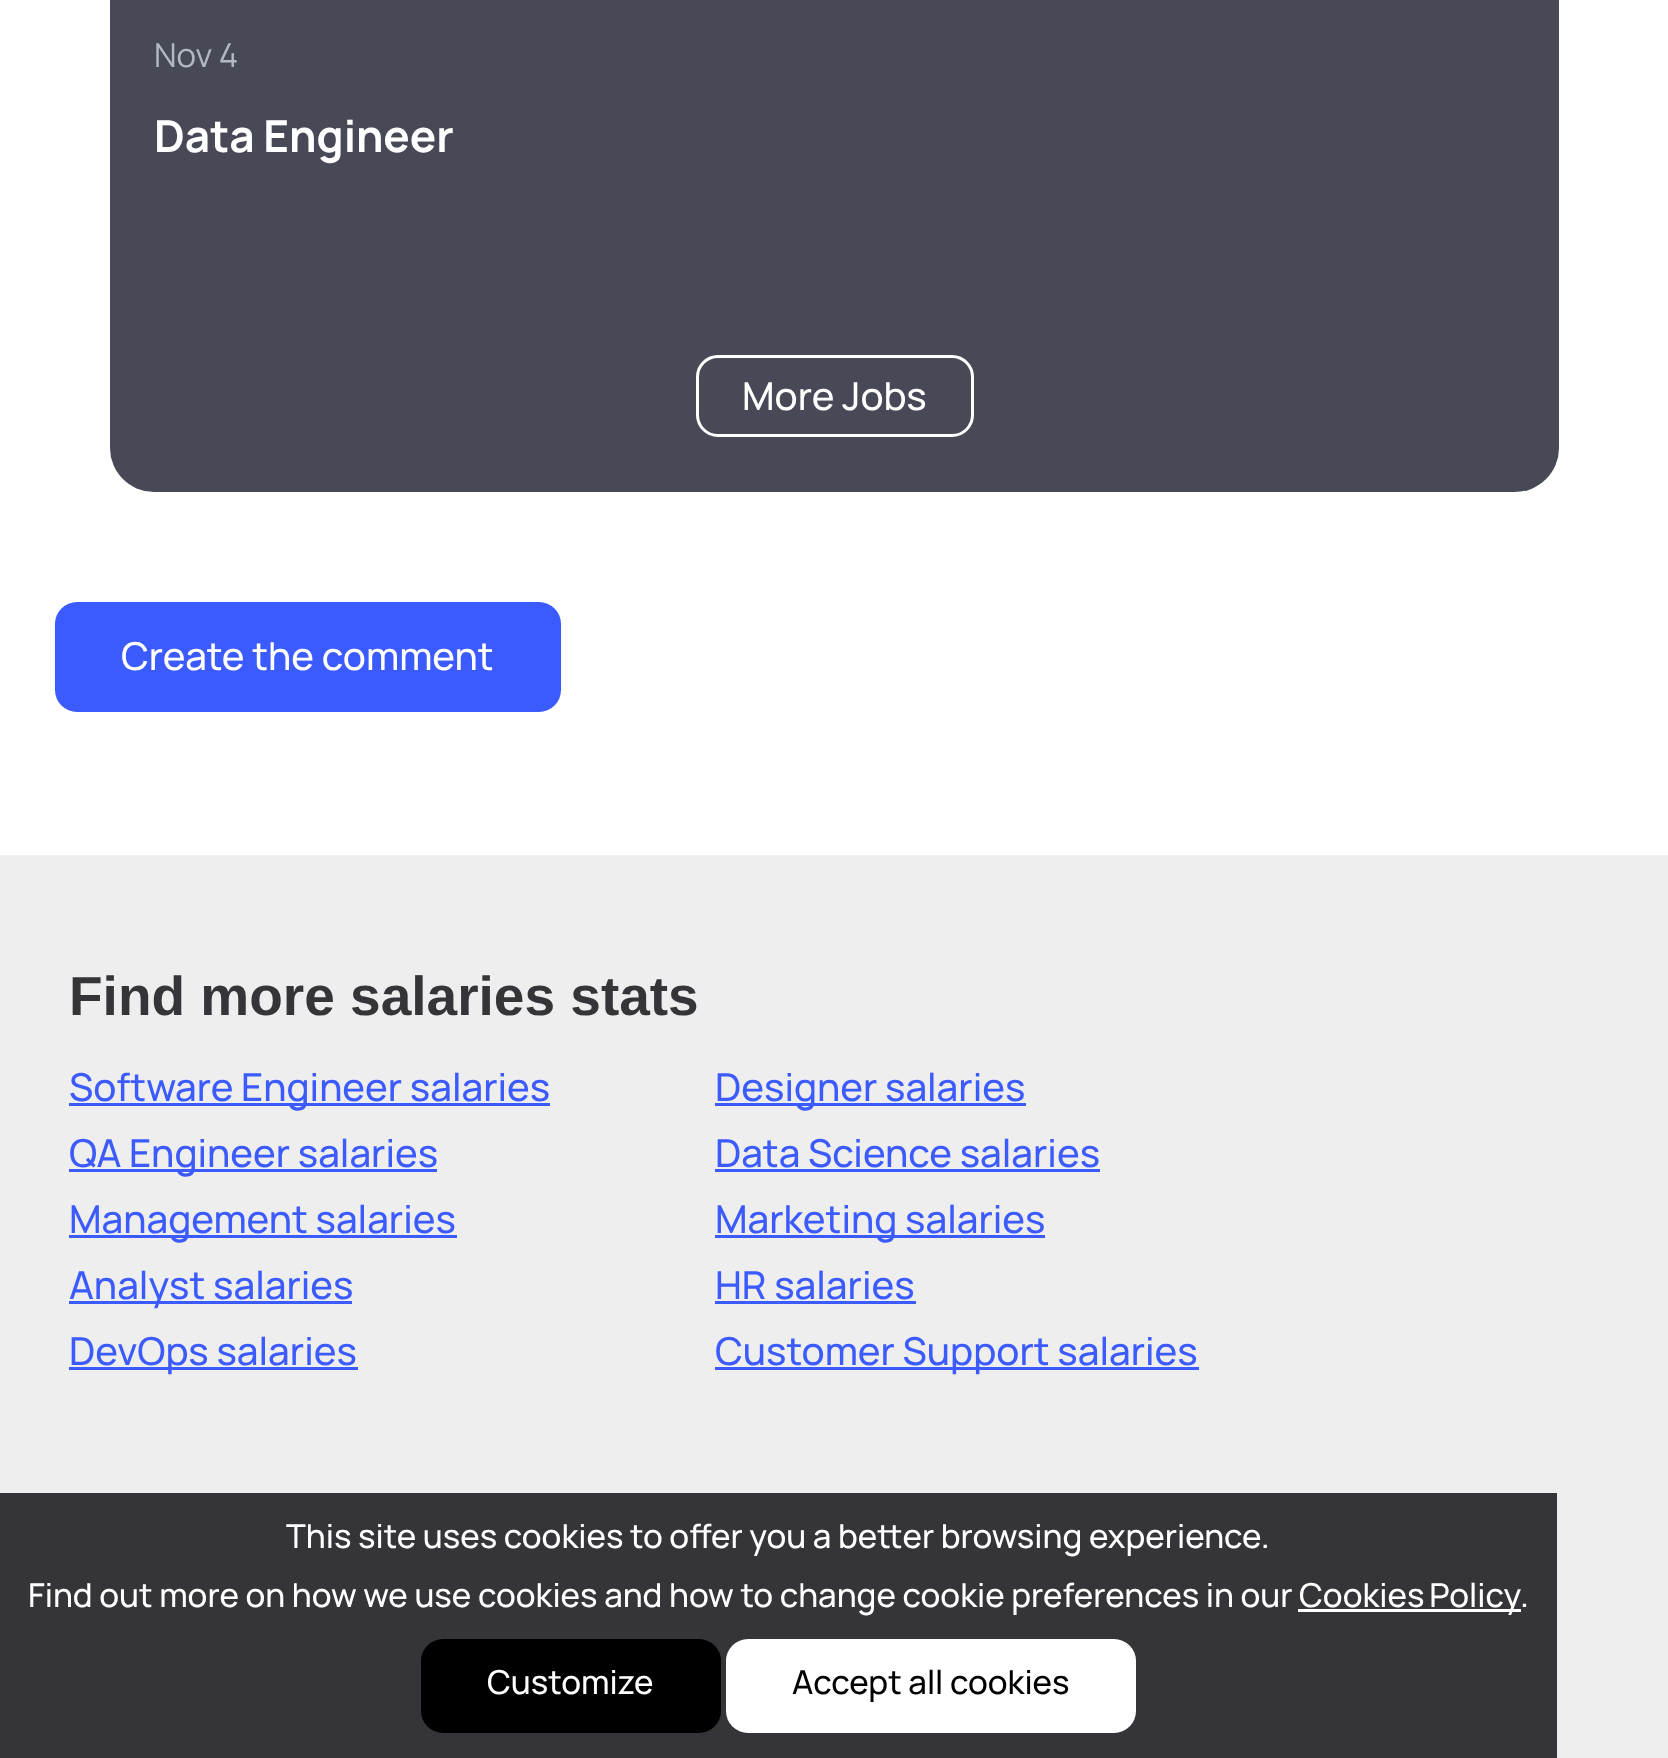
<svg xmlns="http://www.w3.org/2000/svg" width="1668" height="1758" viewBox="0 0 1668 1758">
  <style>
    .t1 { font: 33px Manrope; fill: #b1b8c0; }
    .t2 { font: bold 44px Manrope; fill: #fff; }
    .t3 { font: 500 38.5px Manrope; fill: #fff; }
    .t4 { font: bold 55px Liberation Sans; fill: #353539; }
    .t5 { font: 500 38.5px Manrope; fill: #3c5bff; }
    .t6 { font: 500 33px Manrope; fill: #fff; }
    .t7 { font: 500 33px Manrope; fill: #000; }
  </style>
  <rect width="100%" height="100%" fill="#fff"/>
  <rect x="110" y="-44" width="1449" height="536" rx="44" fill="#484956"/>
  <text x="154" y="67" class="t1">Nov 4</text>
  <text x="154" y="152" class="t2">Data Engineer</text>
  <rect x="697.5" y="356.5" width="275" height="79" rx="20.5" fill="none" stroke="#fff" stroke-width="3"/>
  <text x="742" y="410" class="t3">More Jobs</text>
  <rect x="55" y="602" width="506" height="110" rx="22" fill="#3c5bff"/>
  <text x="121" y="670" class="t3">Create the comment</text>
  <rect x="0" y="855" width="1668" height="903" fill="#eee"/>
  <text x="69" y="1015" class="t4">Find more salaries stats</text>
  <rect x="69" y="1103" width="481" height="3" fill="#3c5bff"/>
  <text x="69" y="1101" class="t5">Software Engineer salaries</text>
  <rect x="69" y="1169" width="368" height="3" fill="#3c5bff"/>
  <text x="69" y="1167" class="t5">QA Engineer salaries</text>
  <rect x="69" y="1235" width="388" height="3" fill="#3c5bff"/>
  <text x="69" y="1233" class="t5">Management salaries</text>
  <rect x="69" y="1301" width="283" height="3" fill="#3c5bff"/>
  <text x="69" y="1299" class="t5">Analyst salaries</text>
  <rect x="69" y="1367" width="289" height="3" fill="#3c5bff"/>
  <text x="69" y="1365" class="t5">DevOps salaries</text>
  <rect x="715" y="1103" width="311" height="3" fill="#3c5bff"/>
  <text x="715" y="1101" class="t5">Designer salaries</text>
  <text x="715" y="1167" class="t5">Data Science salaries</text>
  <rect x="715" y="1169" width="385" height="3" fill="#3c5bff"/>
  <rect x="715" y="1235" width="330" height="3" fill="#3c5bff"/>
  <text x="715" y="1233" class="t5">Marketing salaries</text>
  <text x="715" y="1299" class="t5">HR salaries</text>
  <rect x="715" y="1301" width="201" height="3" fill="#3c5bff"/>
  <rect x="715" y="1367" width="484" height="3" fill="#3c5bff"/>
  <text x="715" y="1365" class="t5">Customer Support salaries</text>
  <rect x="0" y="1493" width="1557" height="265" fill="#353539"/>
  <text x="286" y="1548" class="t6">This site uses cookies to offer you a better browsing experience.</text>
  <text x="28" y="1607" class="t6">Find out more on how we use cookies and how to change cookie preferences in our</text>
  <rect x="1298" y="1609" width="223" height="3" fill="#fff"/>
  <text x="1299" y="1607" word-spacing="-2" class="t6">Cookies Policy</text>
  <text x="1520" y="1607" class="t6">.</text>
  <rect x="421" y="1639" width="300" height="94" rx="22" fill="#000"/>
  <text x="487" y="1694" class="t6">Customize</text>
  <rect x="726" y="1639" width="410" height="94" rx="22" fill="#fff"/>
  <text x="792" y="1694" class="t7">Accept all cookies</text>
</svg>
